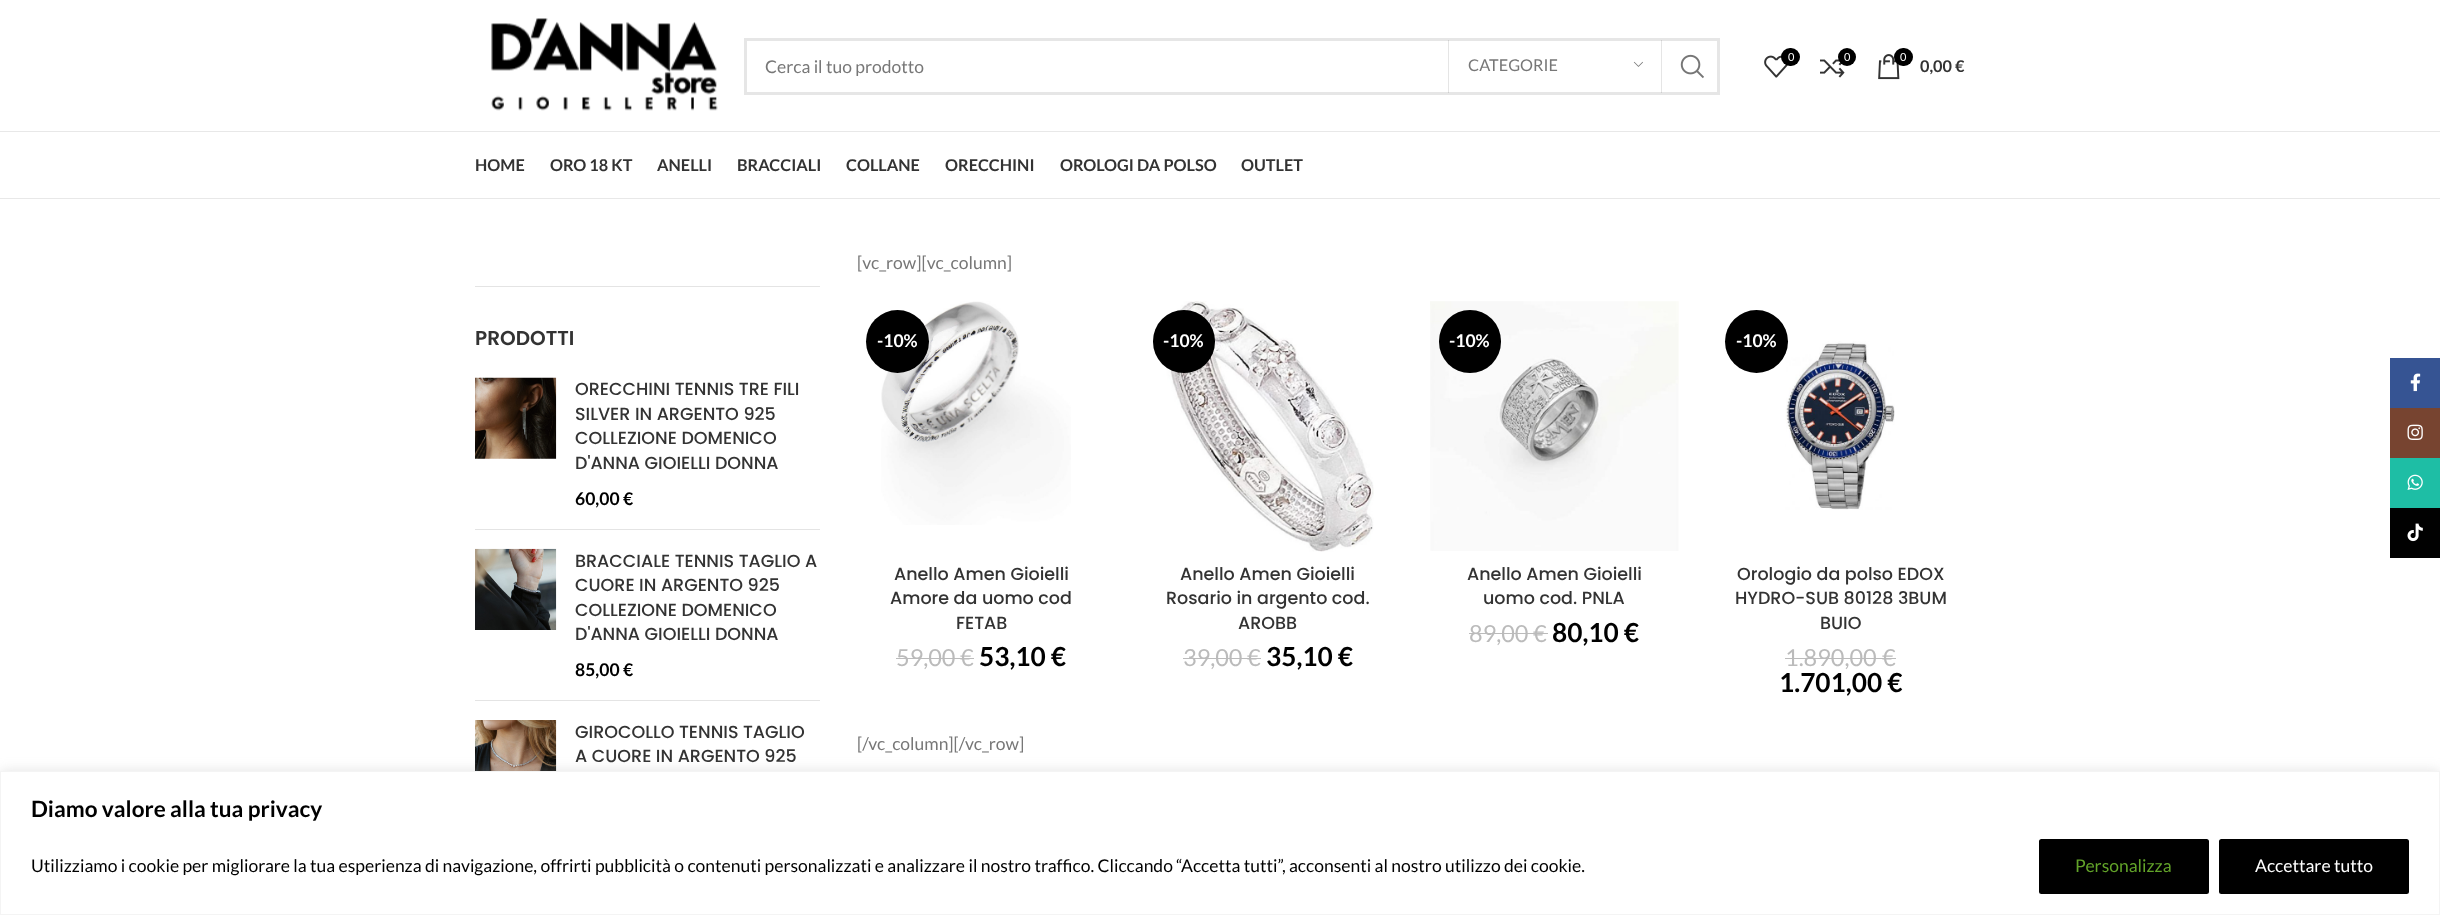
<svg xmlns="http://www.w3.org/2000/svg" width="2440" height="915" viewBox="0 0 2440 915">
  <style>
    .t1 { font: 17.5px Lato; fill: #777; }
    .t2 { font: 16.25px Lato; fill: #777; }
    .t3 { font: 11px Lato; fill: #fff; }
    .t4 { font: bold 16.25px Lato; fill: #333; }
    .t5 { font: 600 20px Poppins; fill: #333; }
    .t6 { font: 500 17.5px Poppins; fill: #333; }
    .t7 { font: bold 17.5px Lato; fill: #000; }
    .t8 { font: bold 17.5px Lato; fill: #fff; }
    .t9 { font: 23.5px Lato; fill: #bbb; }
    .t10 { font: bold 26.25px Lato; fill: #000; }
    .t11 { font: bold 22.5px Lato; fill: #000; }
    .t12 { font: 17.5px Lato; fill: #000; }
    .t13 { font: 17.5px Lato; fill: #62a329; }
    .t14 { font: 17.5px Lato; fill: #fff; }
  </style>
  <rect width="100%" height="100%" fill="#fff"/>
  <rect x="0" y="131" width="2440" height="1" fill="#e8e8e8"/>
  <image x="491" y="18" width="227" height="93" href="images/1.png"/>
  <rect x="745.5" y="39.5" width="973" height="54" fill="none" stroke="#e6e6e6" stroke-width="3"/>
  <text x="765" y="73" class="t1">Cerca il tuo prodotto</text>
  <rect x="1661" y="40" width="1" height="53" fill="#0000001a"/>
  <rect x="1448" y="40" width="1" height="53" fill="#0000001a"/>
  <text x="1468" y="71" class="t2">CATEGORIE</text>
  <image x="1633" y="61" width="10" height="6" href="images/2.png"/>
  <image x="1680" y="54" width="24" height="25" href="images/3.png"/>
  <image x="1764" y="55" width="24" height="23" href="images/4.png"/>
  <rect x="1781" y="48" width="19" height="18" rx="9" fill="#000"/>
  <text x="1788" y="61" class="t3">0</text>
  <image x="1820" y="56" width="25" height="22" href="images/5.png"/>
  <circle cx="1847" cy="57" r="9" fill="#000"/>
  <text x="1844" y="61" class="t3">0</text>
  <image x="1878" y="54" width="22" height="26" href="images/6.png"/>
  <rect x="1894" y="48" width="19" height="18" rx="9" fill="#000"/>
  <text x="1900" y="61" class="t3">0</text>
  <text x="1920" y="72" class="t4">0,00 €</text>
  <rect x="0" y="198" width="2440" height="1" fill="#e8e8e8"/>
  <text x="475" y="171" class="t4">HOME</text>
  <text x="550" y="171" class="t4">ORO 18 KT</text>
  <text x="657" y="171" class="t4">ANELLI</text>
  <text x="737" y="171" class="t4">BRACCIALI</text>
  <text x="846" y="171" class="t4">COLLANE</text>
  <text x="945" y="171" class="t4">ORECCHINI</text>
  <text x="1060" y="171" class="t4">OROLOGI DA POLSO</text>
  <text x="1241" y="171" class="t4">OUTLET</text>
  <rect x="475" y="286" width="345" height="1" fill="#e4e4e4"/>
  <text x="475" y="345" class="t5">PRODOTTI</text>
  <rect x="475" y="529" width="345" height="1" fill="#e4e4e4"/>
  <image x="475" y="377" width="82" height="82" href="images/7.png"/>
  <text x="575" y="395" class="t6">ORECCHINI TENNIS TRE FILI</text>
  <text x="575" y="420" class="t6">SILVER IN ARGENTO 925</text>
  <text x="575" y="444" class="t6">COLLEZIONE DOMENICO</text>
  <text x="575" y="469" class="t6">D'ANNA GIOIELLI DONNA</text>
  <text x="575" y="505" class="t7">60,00 €</text>
  <rect x="475" y="700" width="345" height="1" fill="#e4e4e4"/>
  <image x="475" y="548" width="82" height="82" href="images/8.png"/>
  <text x="575" y="567" class="t6">BRACCIALE TENNIS TAGLIO A</text>
  <text x="575" y="591" class="t6">CUORE IN ARGENTO 925</text>
  <text x="575" y="616" class="t6">COLLEZIONE DOMENICO</text>
  <text x="575" y="640" class="t6">D'ANNA GIOIELLI DONNA</text>
  <text x="575" y="676" class="t7">85,00 €</text>
  <image x="475" y="720" width="82" height="51" href="images/9.png"/>
  <text x="575" y="738" class="t6">GIROCOLLO TENNIS TAGLIO</text>
  <text x="575" y="762" class="t6">A CUORE IN ARGENTO 925</text>
  <text x="857" y="269" class="t1">[vc_row][vc_column]</text>
  <image x="881" y="301" width="190" height="224" href="images/10.png"/>
  <circle cx="897.5" cy="341.5" r="31.5" fill="#000"/>
  <text x="877" y="347" class="t8">-10%</text>
  <text x="894" y="580" class="t6">Anello Amen Gioielli</text>
  <text x="890" y="604" class="t6">Amore da uomo cod</text>
  <text x="956" y="629" class="t6">FETAB</text>
  <text x="896" y="666" class="t9">59,00 €</text>
  <rect x="896" y="658" width="78" height="1" fill="#bbb"/>
  <text x="979" y="666" class="t10">53,10 €</text>
  <image x="1163" y="301" width="211" height="251" href="images/11.png"/>
  <rect x="1153" y="310" width="62" height="63" rx="31" fill="#000"/>
  <text x="1163" y="347" class="t8">-10%</text>
  <text x="1180" y="580" class="t6">Anello Amen Gioielli</text>
  <text x="1166" y="604" class="t6">Rosario in argento cod.</text>
  <text x="1238" y="629" class="t6">AROBB</text>
  <text x="1183" y="666" class="t9">39,00</text>
  <rect x="1183" y="658" width="65" height="1" fill="#bbb"/>
  <text x="1247" y="666" class="t9">€</text>
  <rect x="1248" y="658" width="13" height="1" fill="#bbb"/>
  <text x="1266" y="666" class="t10">35,10 €</text>
  <image x="1430" y="301" width="249" height="250" href="images/12.png"/>
  <rect x="1439" y="310" width="62" height="63" rx="31" fill="#000"/>
  <text x="1449" y="347" class="t8">-10%</text>
  <text x="1467" y="580" class="t6">Anello Amen Gioielli</text>
  <text x="1483" y="604" class="t6">uomo cod. PNLA</text>
  <text x="1469" y="642" class="t9">89,00</text>
  <rect x="1469" y="633" width="65" height="1" fill="#bbb"/>
  <text x="1533" y="642" class="t9">€</text>
  <rect x="1534" y="633" width="14" height="1" fill="#bbb"/>
  <text x="1552" y="642" class="t10">80,10 €</text>
  <image x="1785" y="341" width="110" height="169" href="images/13.png"/>
  <circle cx="1756.5" cy="341.5" r="31.5" fill="#000"/>
  <text x="1736" y="347" class="t8">-10%</text>
  <text x="1737" y="580" class="t6">Orologio da polso EDOX</text>
  <text x="1735" y="604" class="t6">HYDRO-SUB 80128 3BUM</text>
  <text x="1820" y="629" class="t6">BUIO</text>
  <text x="1785" y="666" class="t9">1.890,00</text>
  <rect x="1785" y="658" width="98" height="1" fill="#bbb"/>
  <text x="1882" y="666" class="t9">€</text>
  <rect x="1883" y="658" width="13" height="1" fill="#bbb"/>
  <text x="1779" y="692" class="t10">1.701,00 €</text>
  <text x="857" y="750" class="t1">[/vc_column][/vc_row]</text>
  <rect x="2390" y="358" width="50" height="50" fill="#365493"/>
  <image x="2410" y="373" width="11" height="19" href="images/14.png"/>
  <rect x="2390" y="408" width="50" height="50" fill="#774430"/>
  <image x="2407" y="424" width="16" height="16" href="images/15.png"/>
  <rect x="2390" y="458" width="50" height="50" fill="#1ebea5"/>
  <image x="2407" y="474" width="16" height="16" href="images/16.png"/>
  <rect x="2390" y="508" width="50" height="50" fill="#010101"/>
  <image x="2407" y="523" width="16" height="19" href="images/17.png"/>
  <rect x="0" y="770" width="2440" height="144" fill="#acabab4d" filter="blur(6px)"/>
  <rect x="0.5" y="771.5" width="2439" height="143" fill="#fff" stroke="#f4f4f4"/>
  <text x="31" y="817" class="t11">Diamo valore alla tua privacy</text>
  <text x="31" y="872" class="t12">Utilizziamo i cookie per migliorare la tua esperienza di navigazione, offrirti pubblicità o contenuti personalizzati e analizzare il nostro traffico. Cliccando “Accetta tutti”, acconsenti al nostro utilizzo dei cookie.</text>
  <rect x="2040.5" y="840.5" width="167" height="52" rx="1" fill="#000" stroke="#000" stroke-width="3"/>
  <text x="2075" y="872" class="t13">Personalizza</text>
  <rect x="2220.5" y="840.5" width="187" height="52" rx="1" fill="#000" stroke="#000" stroke-width="3"/>
  <text x="2255" y="872" class="t14">Accettare tutto</text>
</svg>
